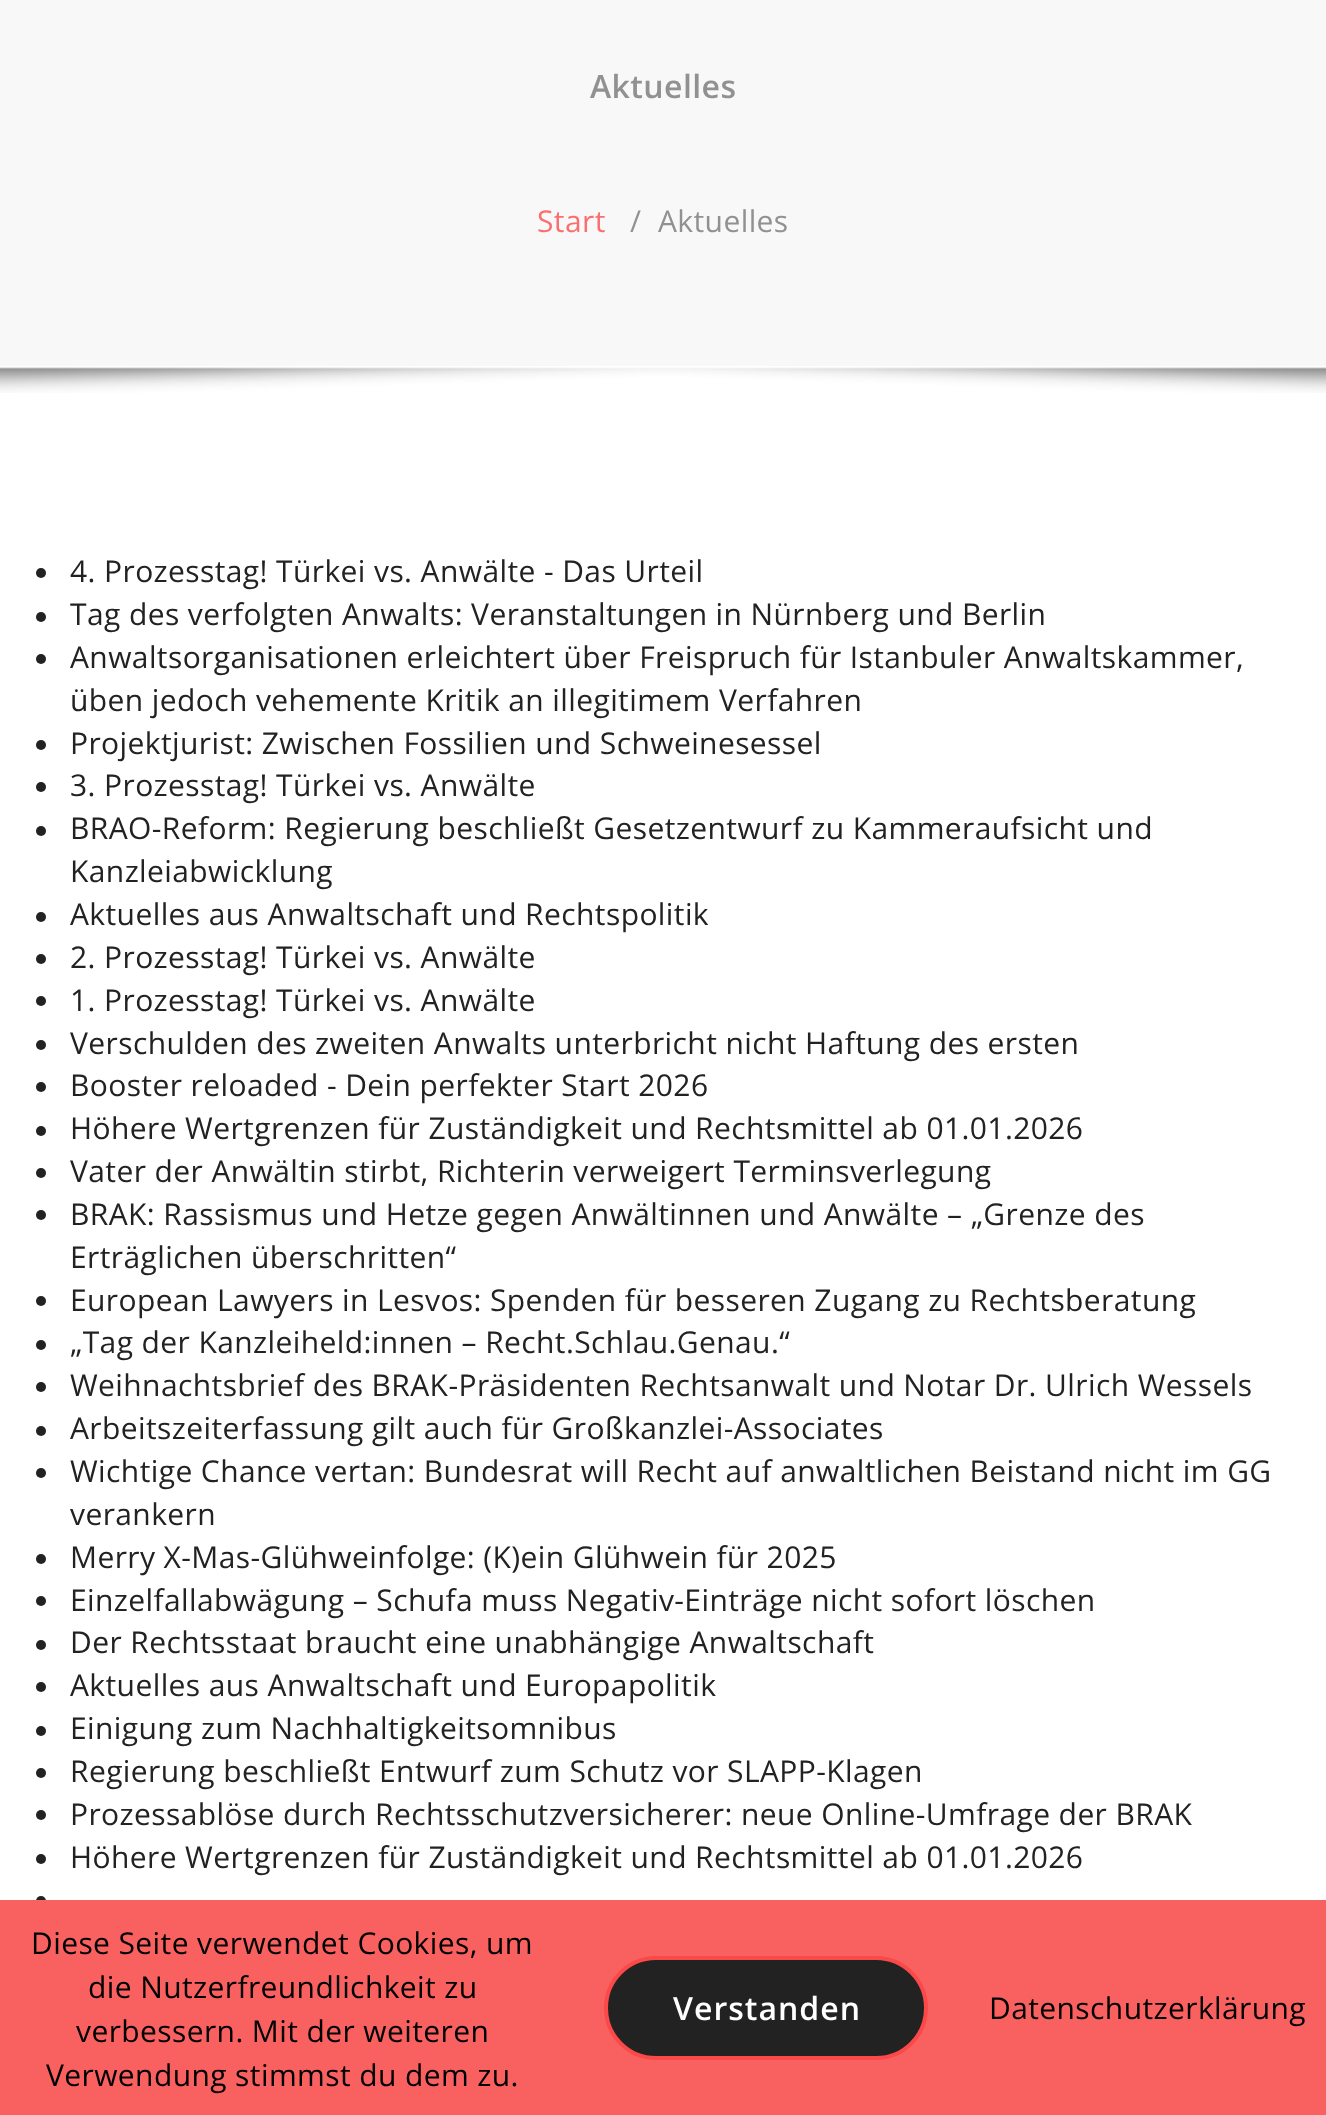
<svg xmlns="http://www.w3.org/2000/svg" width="1326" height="2115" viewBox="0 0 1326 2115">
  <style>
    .t1 { font: 600 32px Open Sans; letter-spacing: 0.4px; fill: #919191; }
    .t2 { font: 30px Open Sans; letter-spacing: 0.4px; fill: #fc6e6e; }
    .t3 { font: 30px Open Sans; letter-spacing: 0.4px; fill: #919191; }
    .t4 { font: 30px Open Sans; letter-spacing: 0.4px; fill: #222; }
    .t5 { font: 30px Open Sans; letter-spacing: 0.4px; fill: #000; }
    .t6 { font: 600 32px Open Sans; letter-spacing: 1px; fill: #fff; }
  </style>
  <rect width="100%" height="100%" fill="#fff"/>
  <rect x="0" y="0" width="1326" height="366" fill="#f8f8f8"/>
  <text x="590" y="98" class="t1">Aktuelles</text>
  <text x="537" y="232" class="t2">Start</text>
  <text x="630" y="232" class="t3">/</text>
  <text x="658" y="232" class="t3">Aktuelles</text>
  <image x="0" y="367" width="1326" height="26" href="images/1.png"/>
  <circle cx="41" cy="573" r="5" fill="#222"/>
  <text x="70" y="582" class="t4">4. Prozesstag! Türkei vs. Anwälte - Das Urteil</text>
  <circle cx="41" cy="617" r="5" fill="#222"/>
  <text x="70" y="625" class="t4">Tag des verfolgten Anwalts: Veranstaltungen in Nürnberg und Berlin</text>
  <circle cx="41" cy="659" r="5" fill="#222"/>
  <text x="70" y="668" class="t4">Anwaltsorganisationen erleichtert über Freispruch für Istanbuler Anwaltskammer,</text>
  <text x="70" y="711" class="t4">üben jedoch vehemente Kritik an illegitimem Verfahren</text>
  <circle cx="41" cy="745" r="5" fill="#222"/>
  <text x="70" y="754" class="t4">Projektjurist: Zwischen Fossilien und Schweinesessel</text>
  <circle cx="41" cy="787" r="5" fill="#222"/>
  <text x="70" y="796" class="t4">3. Prozesstag! Türkei vs. Anwälte</text>
  <circle cx="41" cy="831" r="5" fill="#222"/>
  <text x="70" y="839" class="t4">BRAO-Reform: Regierung beschließt Gesetzentwurf zu Kammeraufsicht und</text>
  <text x="70" y="882" class="t4">Kanzleiabwicklung</text>
  <circle cx="41" cy="917" r="5" fill="#222"/>
  <text x="70" y="925" class="t4">Aktuelles aus Anwaltschaft und Rechtspolitik</text>
  <circle cx="41" cy="959" r="5" fill="#222"/>
  <text x="70" y="968" class="t4">2. Prozesstag! Türkei vs. Anwälte</text>
  <circle cx="41" cy="1001" r="5" fill="#222"/>
  <text x="70" y="1011" class="t4">1. Prozesstag! Türkei vs. Anwälte</text>
  <circle cx="41" cy="1045" r="5" fill="#222"/>
  <text x="70" y="1054" class="t4">Verschulden des zweiten Anwalts unterbricht nicht Haftung des ersten</text>
  <circle cx="41" cy="1087" r="5" fill="#222"/>
  <text x="70" y="1096" class="t4">Booster reloaded - Dein perfekter Start 2026</text>
  <circle cx="41" cy="1131" r="5" fill="#222"/>
  <text x="70" y="1139" class="t4">Höhere Wertgrenzen für Zuständigkeit und Rechtsmittel ab 01.01.2026</text>
  <circle cx="41" cy="1173" r="5" fill="#222"/>
  <text x="70" y="1182" class="t4">Vater der Anwältin stirbt, Richterin verweigert Terminsverlegung</text>
  <circle cx="41" cy="1215" r="5" fill="#222"/>
  <text x="70" y="1225" class="t4">BRAK: Rassismus und Hetze gegen Anwältinnen und Anwälte – „Grenze des</text>
  <text x="70" y="1268" class="t4">Erträglichen überschritten“</text>
  <circle cx="41" cy="1301" r="5" fill="#222"/>
  <text x="70" y="1311" class="t4">European Lawyers in Lesvos: Spenden für besseren Zugang zu Rechtsberatung</text>
  <circle cx="41" cy="1345" r="5" fill="#222"/>
  <text x="70" y="1353" class="t4">„Tag der Kanzleiheld:innen – Recht.Schlau.Genau.“</text>
  <circle cx="41" cy="1387" r="5" fill="#222"/>
  <text x="70" y="1396" class="t4">Weihnachtsbrief des BRAK-Präsidenten Rechtsanwalt und Notar Dr. Ulrich Wessels</text>
  <circle cx="41" cy="1431" r="5" fill="#222"/>
  <text x="70" y="1439" class="t4">Arbeitszeiterfassung gilt auch für Großkanzlei-Associates</text>
  <circle cx="41" cy="1473" r="5" fill="#222"/>
  <text x="70" y="1482" class="t4">Wichtige Chance vertan: Bundesrat will Recht auf anwaltlichen Beistand nicht im GG</text>
  <text x="70" y="1525" class="t4">verankern</text>
  <circle cx="41" cy="1559" r="5" fill="#222"/>
  <text x="70" y="1568" class="t4">Merry X-Mas-Glühweinfolge: (K)ein Glühwein für 2025</text>
  <circle cx="41" cy="1601" r="5" fill="#222"/>
  <text x="70" y="1611" class="t4">Einzelfallabwägung – Schufa muss Negativ-Einträge nicht sofort löschen</text>
  <circle cx="41" cy="1645" r="5" fill="#222"/>
  <text x="70" y="1653" class="t4">Der Rechtsstaat braucht eine unabhängige Anwaltschaft</text>
  <circle cx="41" cy="1687" r="5" fill="#222"/>
  <text x="70" y="1696" class="t4">Aktuelles aus Anwaltschaft und Europapolitik</text>
  <circle cx="41" cy="1731" r="5" fill="#222"/>
  <text x="70" y="1739" class="t4">Einigung zum Nachhaltigkeitsomnibus</text>
  <circle cx="41" cy="1773" r="5" fill="#222"/>
  <text x="70" y="1782" class="t4">Regierung beschließt Entwurf zum Schutz vor SLAPP-Klagen</text>
  <circle cx="41" cy="1815" r="5" fill="#222"/>
  <text x="70" y="1825" class="t4">Prozessablöse durch Rechtsschutzversicherer: neue Online-Umfrage der BRAK</text>
  <circle cx="41" cy="1859" r="5" fill="#222"/>
  <text x="70" y="1868" class="t4">Höhere Wertgrenzen für Zuständigkeit und Rechtsmittel ab 01.01.2026</text>
  <circle cx="41" cy="1901" r="5" fill="#222"/>
  <rect x="0" y="1900" width="1326" height="215" fill="#f96161"/>
  <text x="31" y="1954" class="t5">Diese Seite verwendet Cookies, um</text>
  <text x="88" y="1998" class="t5">die Nutzerfreundlichkeit zu</text>
  <text x="76" y="2042" class="t5">verbessern. Mit der weiteren</text>
  <text x="46" y="2086" class="t5">Verwendung stimmst du dem zu.</text>
  <rect x="606" y="1958" width="320" height="100" rx="50" fill="#222" stroke="#fb4848" stroke-width="4"/>
  <text x="673" y="2020" class="t6">Verstanden</text>
  <text x="989" y="2019" class="t5">Datenschutzerklärung</text>
</svg>
